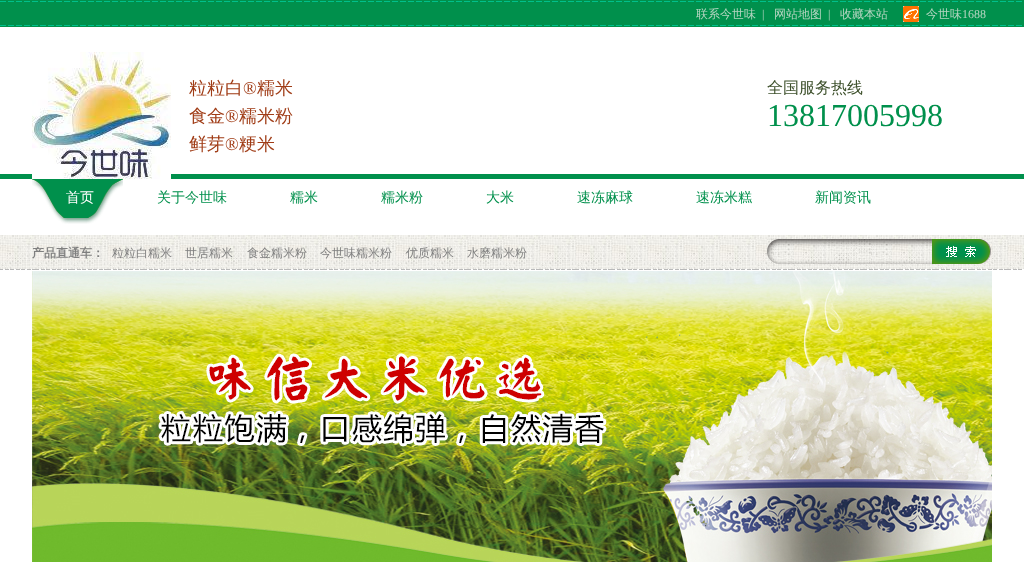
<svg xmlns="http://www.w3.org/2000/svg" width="1024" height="562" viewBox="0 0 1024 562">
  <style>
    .t1 { font: 500 12px WenQuanYi Zen Hei; fill: #b4d5c1; }
    .t2 { font: 12px Liberation Serif; fill: #b4d5c1; }
    .t3 { font: 500 18px WenQuanYi Zen Hei; fill: #a03c16; }
    .t4 { font: 18px Liberation Serif; fill: #a03c16; }
    .t5 { font: 500 16px WenQuanYi Zen Hei; fill: #3d502b; }
    .t6 { font: 32px Liberation Serif; fill: #00904c; }
    .t7 { font: 500 14px WenQuanYi Zen Hei; fill: #fff; }
    .t8 { font: 500 14px WenQuanYi Zen Hei; fill: #00904c; }
    .t9 { font: bold 12px WenQuanYi Zen Hei; fill: #7f7f7f; }
    .t10 { font: 500 12px WenQuanYi Zen Hei; fill: #7f7f7f; }
  </style>
  <rect width="100%" height="100%" fill="#fff"/>
  <image x="0" y="0" width="1024" height="179" href="images/1.png"/>
  <text x="696" y="18" class="t1">联系今世味</text>
  <text x="762" y="18" class="t2">|</text>
  <text x="774" y="18" class="t1">网站地图</text>
  <text x="828" y="18" class="t2">|</text>
  <text x="840" y="18" class="t1">收藏本站</text>
  <image x="903" y="6" width="16" height="16" href="images/2.png"/>
  <text x="926" y="18" class="t1">今世味</text>
  <text x="962" y="18" class="t2">1688</text>
  <image x="32" y="52" width="139" height="127" href="images/3.png"/>
  <text x="189" y="94" class="t3">粒粒白</text>
  <text x="243" y="94" class="t4">®</text>
  <text x="257" y="94" class="t3">糯米</text>
  <text x="189" y="122" class="t3">食金</text>
  <text x="225" y="122" class="t4">®</text>
  <text x="239" y="122" class="t3">糯米粉</text>
  <text x="189" y="150" class="t3">鲜芽</text>
  <text x="225" y="150" class="t4">®</text>
  <text x="239" y="150" class="t3">粳米</text>
  <text x="767" y="93" class="t5">全国服务热线</text>
  <text x="767" y="126" class="t6">13817005998</text>
  <image x="32" y="179" width="55" height="45" href="images/4.png"/>
  <image x="87" y="179" width="36" height="45" href="images/5.png"/>
  <text x="66" y="202" class="t7">首页</text>
  <text x="157" y="202" class="t8">关于今世味</text>
  <text x="290" y="202" class="t8">糯米</text>
  <text x="381" y="202" class="t8">糯米粉</text>
  <text x="486" y="202" class="t8">大米</text>
  <text x="577" y="202" class="t8">速冻麻球</text>
  <text x="696" y="202" class="t8">速冻米糕</text>
  <text x="815" y="202" class="t8">新闻资讯</text>
  <image x="0" y="235" width="1024" height="35" href="images/6.png"/>
  <text x="32" y="257" class="t9">产品直通车：</text>
  <text x="112" y="257" class="t10">粒粒白糯米</text>
  <text x="185" y="257" class="t10">世居糯米</text>
  <text x="247" y="257" class="t10">食金糯米粉</text>
  <text x="320" y="257" class="t10">今世味糯米粉</text>
  <text x="406" y="257" class="t10">优质糯米</text>
  <text x="467" y="257" class="t10">水磨糯米粉</text>
  <image x="767" y="239" width="165" height="25" href="images/7.png"/>
  <image x="932" y="239" width="60" height="25" href="images/8.png"/>
  <image x="32" y="271" width="960" height="291" href="images/9.png"/>
</svg>
